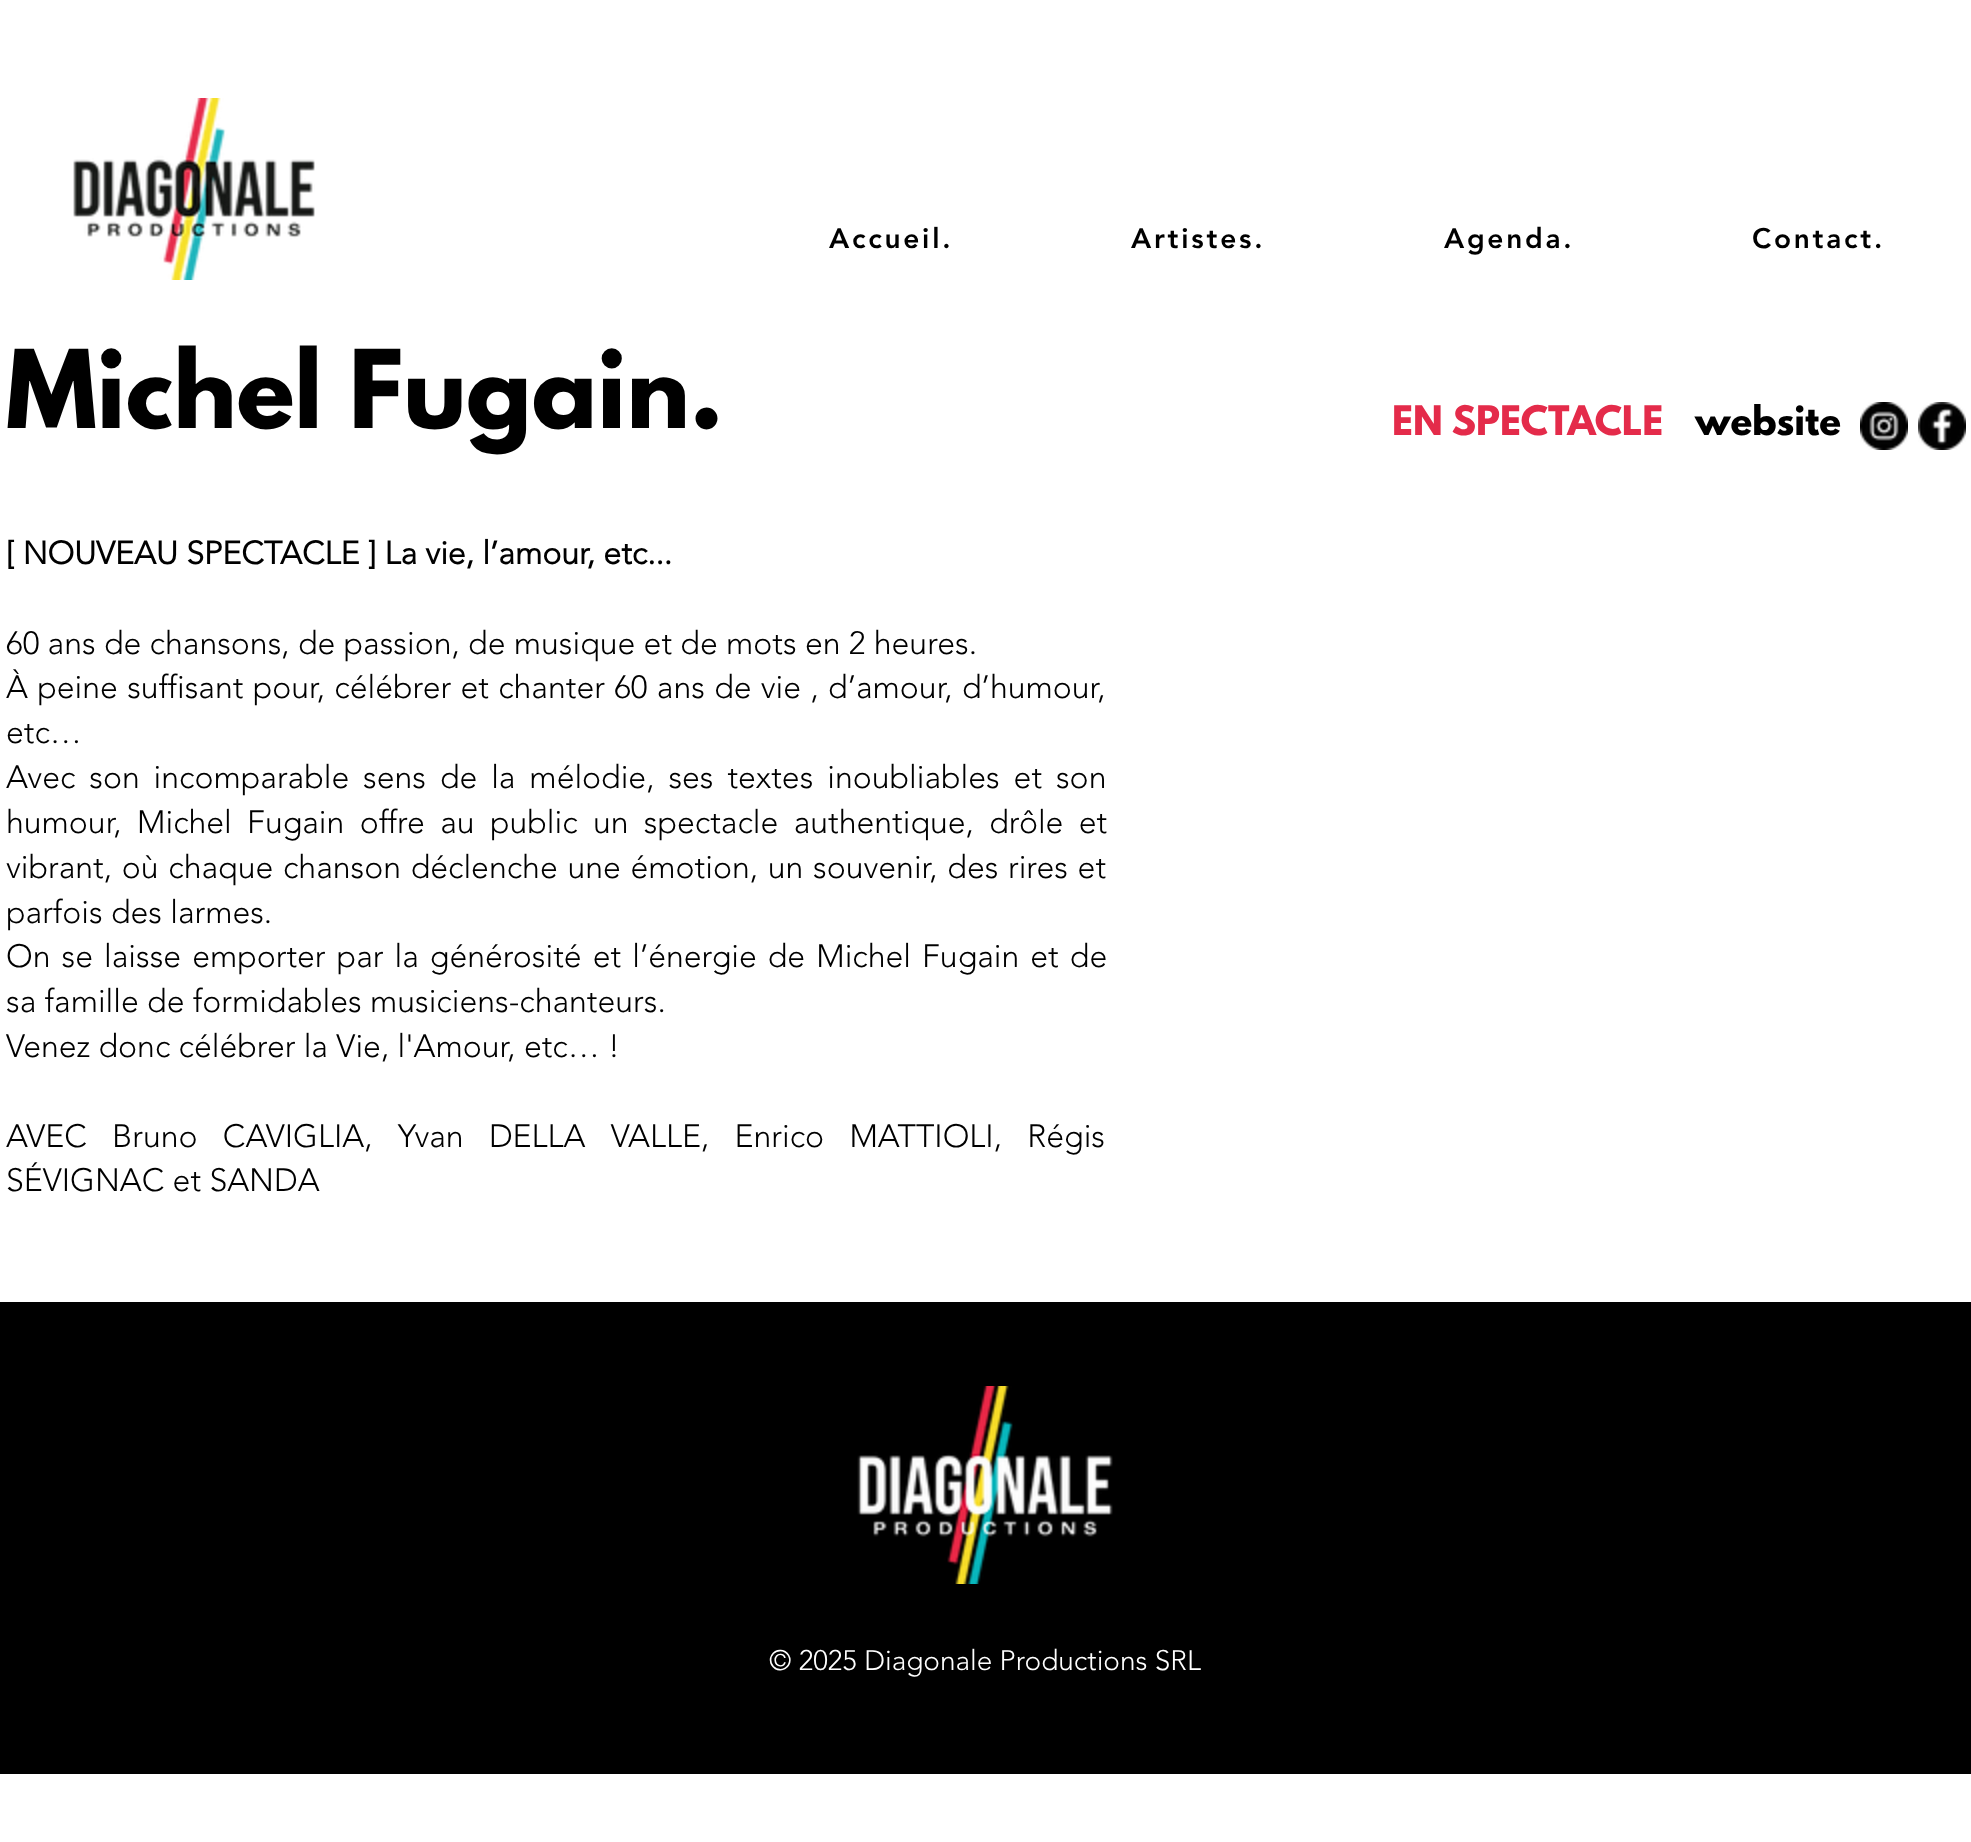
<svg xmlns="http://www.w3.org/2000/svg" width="1971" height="1842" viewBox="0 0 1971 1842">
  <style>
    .t1 { font: 900 28px 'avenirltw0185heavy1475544'; letter-spacing: 2.75px; fill: #000; }
    .t2 { font: bold 96px League Spartan; fill: #000; }
    .t3 { font: bold 36px League Spartan; fill: #e42b4a; }
    .t4 { font: bold 36px League Spartan; fill: #000; }
    .t5 { font: bold 32px 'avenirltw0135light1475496'; fill: #000; }
    .t6 { font: 300 32px 'avenirltw0135light1475496'; fill: #000; }
    .t7 { font: 300 28px 'avenirltw0135light1475496'; fill: #fff; }
  </style>
  <rect width="100%" height="100%" fill="#fff"/>
  <image x="73" y="98" width="242" height="182" href="images/1.png"/>
  <text x="829" y="248" class="t1">Accueil.</text>
  <text x="1131" y="248" class="t1">Artistes.</text>
  <text x="1444" y="248" class="t1">Agenda.</text>
  <text x="1752" y="248" class="t1">Contact.</text>
  <text x="6" y="428" class="t2">Michel Fugain.</text>
  <text x="1392" y="435" class="t3">EN SPECTACLE</text>
  <text x="1695" y="435" class="t4">website</text>
  <image x="1860" y="402" width="48" height="48" href="images/2.png"/>
  <image x="1918" y="402" width="48" height="48" href="images/3.png"/>
  <text x="6" y="564" class="t5">[ NOUVEAU SPECTACLE ] La vie, l’amour, etc...</text>
  <text x="6" y="654" class="t6">60 ans de chansons, de passion, de musique et de mots en 2 heures.</text>
  <text x="6" y="698" word-spacing="1" class="t6">À peine suffisant pour, célébrer et chanter 60 ans de vie , d’amour, d’humour,</text>
  <text x="6" y="743" class="t6">etc…</text>
  <text x="6" y="788" word-spacing="5.6" class="t6">Avec son incomparable sens de la mélodie, ses textes inoubliables et son</text>
  <text x="6" y="833" word-spacing="7" class="t6">humour, Michel Fugain offre au public un spectacle authentique, drôle et</text>
  <text x="6" y="878" word-spacing="1.4" class="t6">vibrant, où chaque chanson déclenche une émotion, un souvenir, des rires et</text>
  <text x="6" y="923" class="t6">parfois des larmes.</text>
  <text x="6" y="967" word-spacing="2.75" class="t6">On se laisse emporter par la générosité et l’énergie de Michel Fugain et de</text>
  <text x="6" y="1012" class="t6">sa famille de formidables musiciens-chanteurs.</text>
  <text x="6" y="1057" class="t6">Venez donc célébrer la Vie, l'Amour, etc… !</text>
  <text x="6" y="1147" word-spacing="17" class="t6">AVEC Bruno CAVIGLIA, Yvan DELLA VALLE, Enrico MATTIOLI, Régis</text>
  <text x="6" y="1191" class="t6">SÉVIGNAC et SANDA</text>
  <rect x="0" y="1302" width="1971" height="472" fill="#000"/>
  <image x="857" y="1386" width="256" height="198" href="images/4.png"/>
  <text x="769" y="1670" class="t7">© 2025 Diagonale Productions SRL</text>
</svg>
